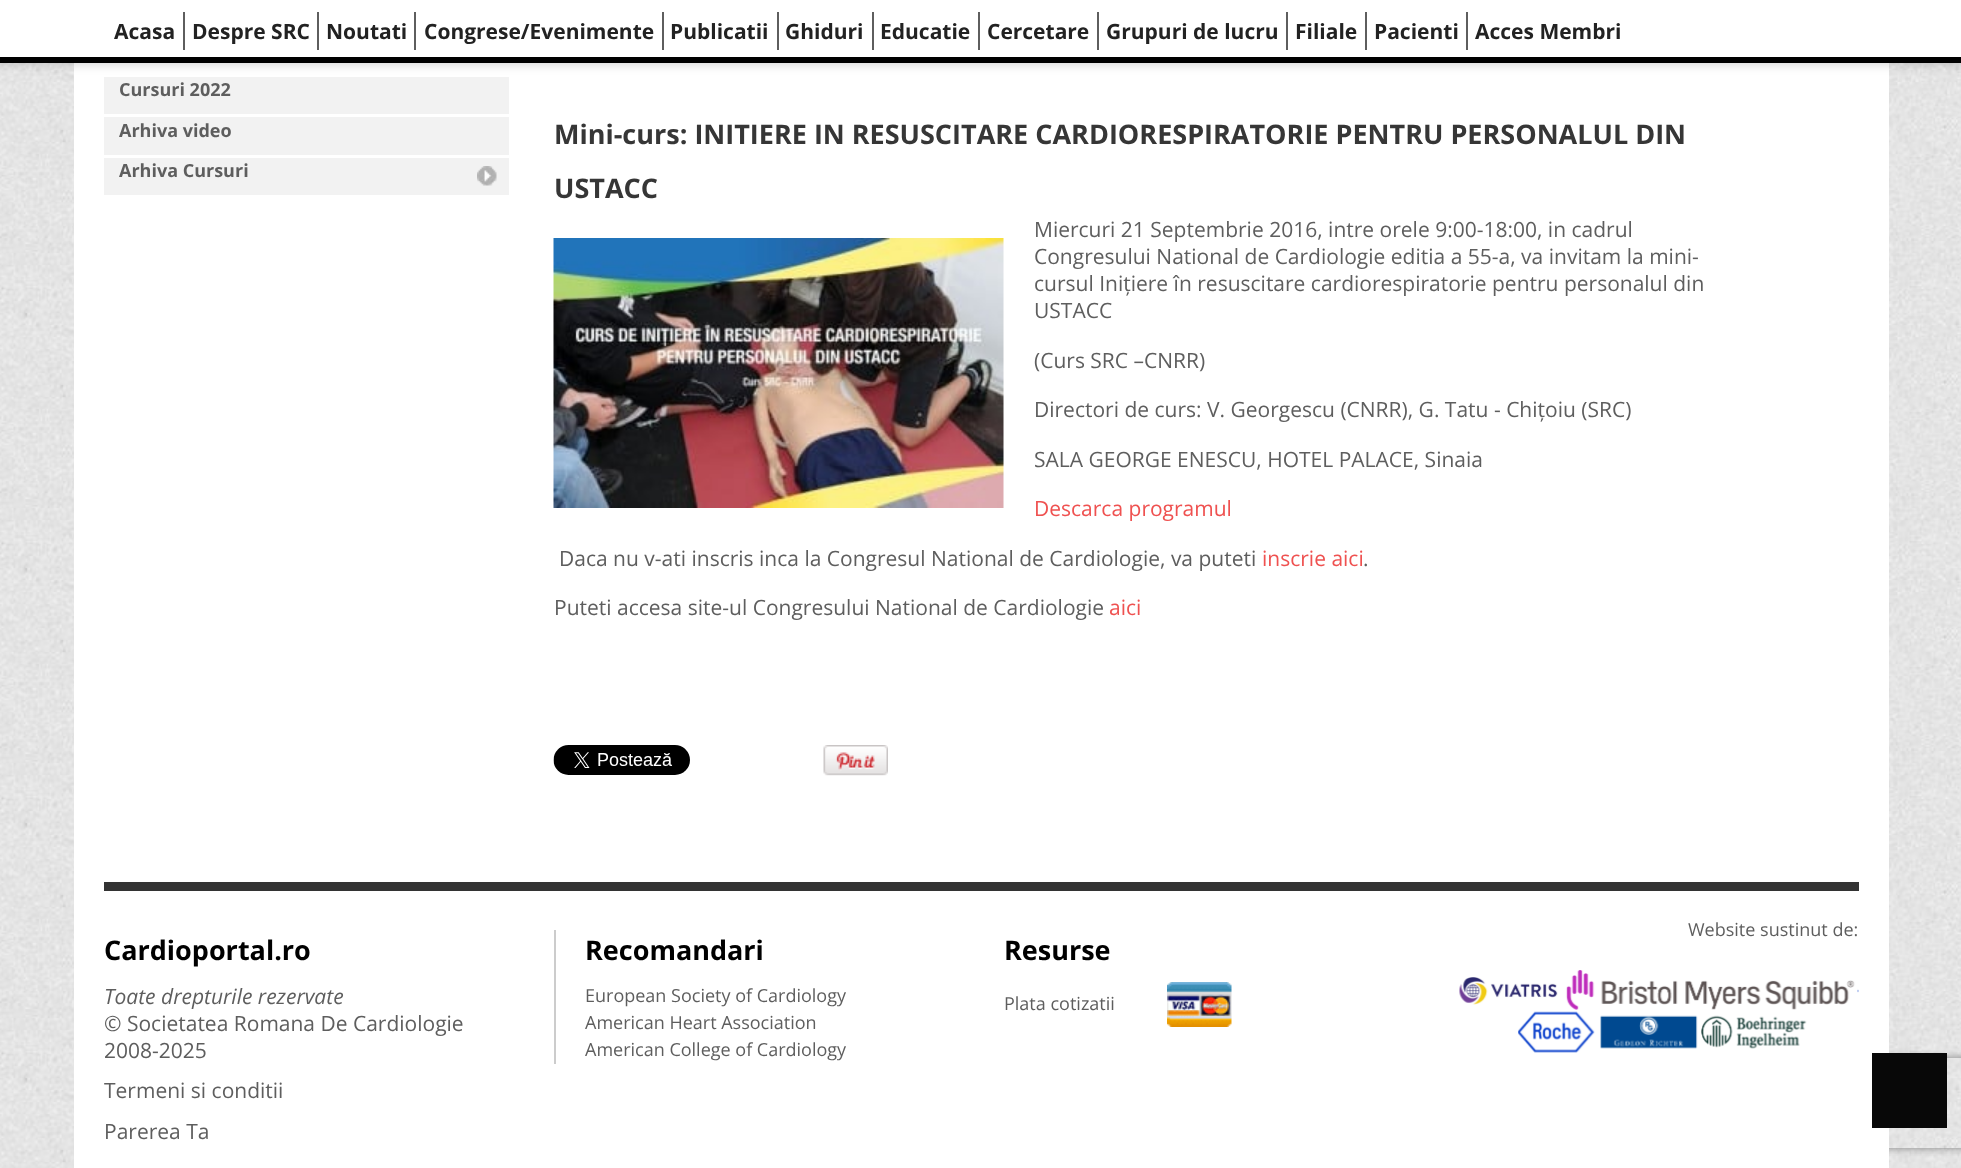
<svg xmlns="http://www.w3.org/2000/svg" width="1961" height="1168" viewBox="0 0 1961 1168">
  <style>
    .t1 { font: bold 21px Open Sans; fill: #222; }
    .t2 { font: bold 18px Open Sans; fill: #5e5e5e; }
    .t3 { font: bold 27px Open Sans; fill: #363636; }
    .t4 { font: 21px Open Sans; fill: #5e5e5e; }
    .t5 { font: 21px Open Sans; fill: #ef5150; }
    .t6 { font: 18px Open Sans; fill: #5e5e5e; }
    .t7 { font: bold 27px Open Sans; fill: #000; }
    .t8 { font: italic 21px Open Sans; fill: #5e5e5e; }
  </style>
  <defs>
    <clipPath id="clip1"><path d="M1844 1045H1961V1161H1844ZM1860 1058H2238C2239.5 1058 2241 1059.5 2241 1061V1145C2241 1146.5 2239.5 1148 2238 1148H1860C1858.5 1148 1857 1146.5 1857 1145V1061C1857 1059.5 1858.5 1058 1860 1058Z" clip-rule="evenodd"/></clipPath>
  </defs>
  <rect width="100%" height="100%" fill="#fff"/>
  <image x="0" y="63" width="1961" height="1105" href="images/1.png"/>
  <g clip-path="url(#clip1)">
    <rect x="1857" y="1058" width="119" height="90" rx="3" fill="#808080" filter="blur(4px)"/>
  </g>
  <rect x="74" y="63" width="1815" height="1105" fill="#fff"/>
  <rect x="104" y="77" width="405" height="37" fill="#f2f2f2"/>
  <rect x="-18" y="0" width="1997" height="63" fill="#00000033" filter="blur(6px)"/>
  <rect x="0" y="0" width="1961" height="57" fill="#fff"/>
  <rect x="0" y="57" width="1961" height="6" fill="#000"/>
  <text x="114" y="39" class="t1">Acasa</text>
  <rect x="183" y="12" width="2" height="38" fill="#5e5e5e"/>
  <text x="192" y="39" class="t1">Despre SRC</text>
  <rect x="317" y="12" width="2" height="38" fill="#5e5e5e"/>
  <text x="326" y="39" class="t1">Noutati</text>
  <rect x="414" y="12" width="2" height="38" fill="#5e5e5e"/>
  <text x="424" y="39" class="t1">Congrese/Evenimente</text>
  <rect x="662" y="12" width="2" height="38" fill="#5e5e5e"/>
  <text x="670" y="39" class="t1">Publicatii</text>
  <rect x="777" y="12" width="2" height="38" fill="#5e5e5e"/>
  <text x="785" y="39" class="t1">Ghiduri</text>
  <rect x="872" y="12" width="2" height="38" fill="#5e5e5e"/>
  <text x="880" y="39" class="t1">Educatie</text>
  <rect x="978" y="12" width="2" height="38" fill="#5e5e5e"/>
  <text x="987" y="39" class="t1">Cercetare</text>
  <rect x="1097" y="12" width="2" height="38" fill="#5e5e5e"/>
  <text x="1106" y="39" class="t1">Grupuri de lucru</text>
  <rect x="1286" y="12" width="2" height="38" fill="#5e5e5e"/>
  <text x="1295" y="39" class="t1">Filiale</text>
  <rect x="1365" y="12" width="2" height="38" fill="#5e5e5e"/>
  <text x="1374" y="39" class="t1">Pacienti</text>
  <rect x="1466" y="12" width="2" height="38" fill="#5e5e5e"/>
  <text x="1475" y="39" class="t1">Acces Membri</text>
  <text x="119" y="96" class="t2">Cursuri 2022</text>
  <rect x="104" y="117" width="405" height="38" fill="#f2f2f2"/>
  <text x="119" y="137" class="t2">Arhiva video</text>
  <rect x="104" y="158" width="405" height="37" fill="#f2f2f2"/>
  <image x="477" y="166" width="20" height="20" href="images/2.png"/>
  <text x="119" y="177" class="t2">Arhiva Cursuri</text>
  <text x="554" y="144" class="t3">Mini-curs: INITIERE IN RESUSCITARE CARDIORESPIRATORIE PENTRU PERSONALUL DIN</text>
  <text x="554" y="198" class="t3">USTACC</text>
  <text x="1034" y="237" class="t4">Miercuri 21 Septembrie 2016, intre orele 9:00-18:00, in cadrul</text>
  <image x="553" y="238" width="451" height="270" href="images/3.png"/>
  <text x="1034" y="264" class="t4">Congresului National de Cardiologie editia a 55-a, va invitam la mini-</text>
  <text x="1034" y="291" class="t4">cursul Inițiere în resuscitare cardiorespiratorie pentru personalul din</text>
  <text x="1034" y="318" class="t4">USTACC</text>
  <text x="1034" y="368" class="t4">(Curs SRC –CNRR)</text>
  <text x="1034" y="417" class="t4">Directori de curs: V. Georgescu (CNRR), G. Tatu - Chițoiu (SRC)</text>
  <text x="1034" y="467" class="t4">SALA GEORGE ENESCU, HOTEL PALACE, Sinaia</text>
  <text x="1034" y="516" class="t5">Descarca programul</text>
  <text x="559" y="566" class="t4">Daca nu v-ati inscris inca la Congresul National de Cardiologie, va puteti</text>
  <text x="1262" y="566" class="t5">inscrie aici</text>
  <text x="1363" y="566" class="t4">.</text>
  <text x="554" y="615" class="t4">Puteti accesa site-ul Congresului National de Cardiologie</text>
  <text x="1109" y="615" class="t5">aici</text>
  <image x="553" y="745" width="137" height="30" href="images/4.png"/>
  <image x="823" y="745" width="65" height="31" href="images/5.png"/>
  <rect x="104" y="882" width="1755" height="9" fill="#333"/>
  <text x="1688" y="936" class="t6">Website sustinut de:</text>
  <image x="1459" y="970" width="400" height="83" href="images/6.png"/>
  <text x="104" y="960" class="t7">Cardioportal.ro</text>
  <text x="104" y="1004" class="t8">Toate drepturile rezervate</text>
  <text x="104" y="1031" class="t4">© Societatea Romana De Cardiologie</text>
  <text x="104" y="1058" class="t4">2008-2025</text>
  <text x="104" y="1098" class="t4">Termeni si conditii</text>
  <text x="104" y="1139" class="t4">Parerea Ta</text>
  <rect x="554" y="930" width="2" height="134" fill="#ccc"/>
  <text x="585" y="960" class="t7">Recomandari</text>
  <text x="585" y="1002" class="t6">European Society of Cardiology</text>
  <text x="585" y="1029" class="t6">American Heart Association</text>
  <text x="585" y="1056" class="t6">American College of Cardiology</text>
  <text x="1004" y="960" class="t7">Resurse</text>
  <text x="1004" y="1010" class="t6">Plata cotizatii</text>
  <image x="1167" y="982" width="65" height="45" href="images/7.png"/>
  <rect x="1872" y="1053" width="75" height="75" fill="#080808"/>
</svg>
